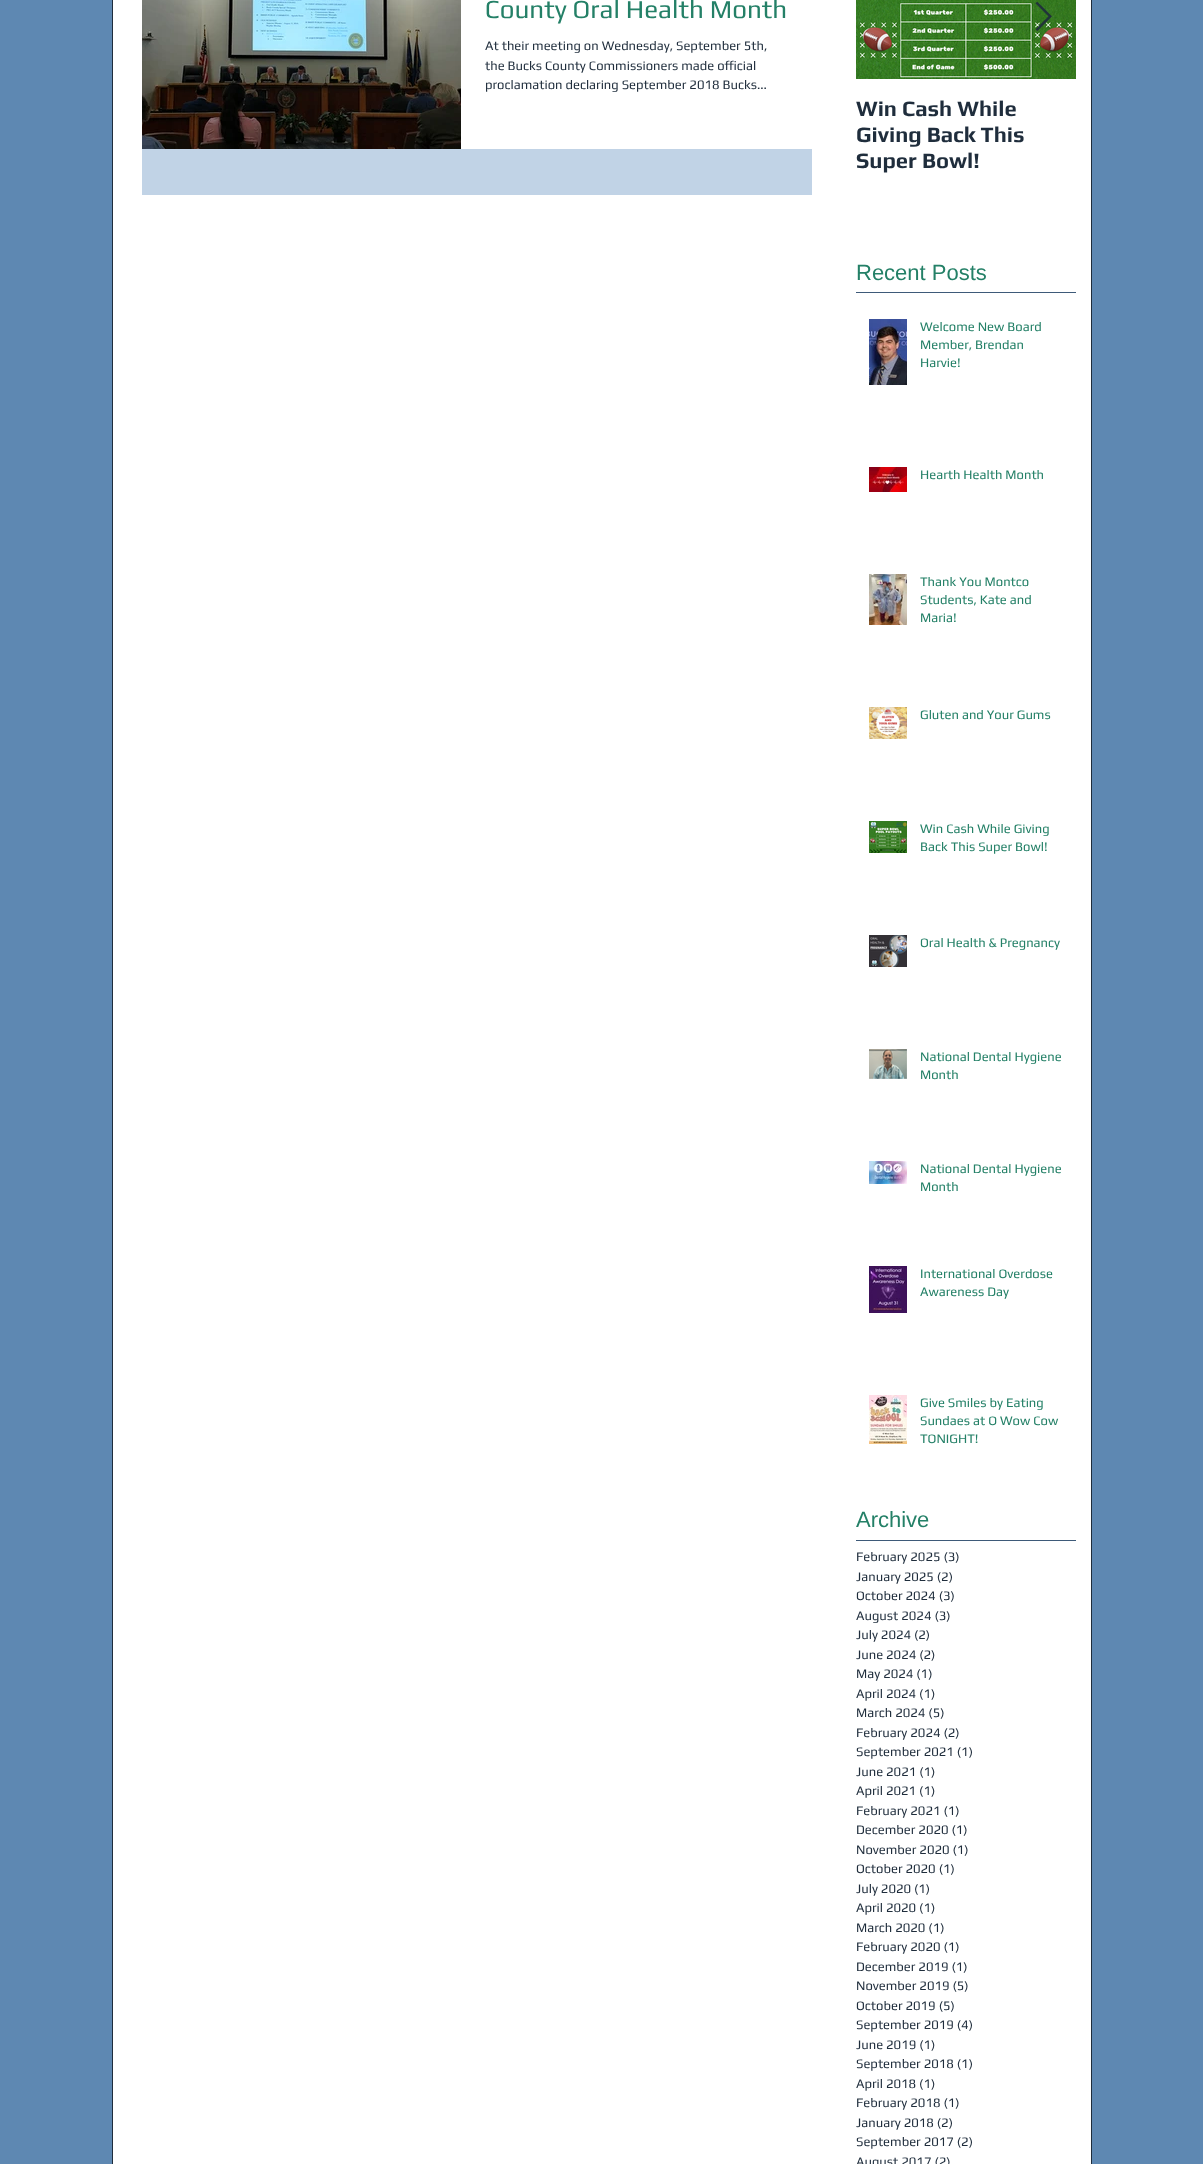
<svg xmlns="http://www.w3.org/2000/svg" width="1203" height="2164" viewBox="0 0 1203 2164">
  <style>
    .t1 { font: 26px Play; fill: #248067; }
    .t2 { font: 13px Play; fill: #1f2d3c; }
    .t3 { font: bold 22px Play; fill: #1f2d3c; }
    .t4 { font: 22px Liberation Sans; fill: #248067; }
    .t5 { font: 13px Play; fill: #248067; }
  </style>
  <rect width="100%" height="100%" fill="#5e88b2"/>
  <rect x="112.5" y="-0.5" width="979" height="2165" fill="#fff" stroke="#1f2d3c"/>
  <rect x="142" y="149" width="670" height="46" fill="#c1d3e6"/>
  <image x="142" y="0" width="319" height="149" href="images/1.png"/>
  <text x="485" y="18" class="t1">County Oral Health Month</text>
  <text x="485" y="50" class="t2">At their meeting on Wednesday, September 5th,</text>
  <text x="485" y="70" class="t2">the Bucks County Commissioners made official</text>
  <text x="485" y="89" class="t2">proclamation declaring September 2018 Bucks...</text>
  <image x="856" y="0" width="220" height="79" href="images/3.png"/>
  <image x="1035" y="2" width="17" height="29" href="images/2.png"/>
  <text x="856" y="116" class="t3">Win Cash While</text>
  <text x="856" y="142" class="t3">Giving Back This</text>
  <text x="856" y="168" class="t3">Super Bowl!</text>
  <text x="856" y="280" class="t4">Recent Posts</text>
  <rect x="856" y="292" width="220" height="1" fill="#3e5a79"/>
  <image x="869" y="319" width="38" height="66" href="images/4.png"/>
  <text x="920" y="331" class="t5">Welcome New Board</text>
  <text x="920" y="349" class="t5">Member, Brendan</text>
  <text x="920" y="367" class="t5">Harvie!</text>
  <image x="869" y="467" width="38" height="25" href="images/5.png"/>
  <text x="920" y="479" class="t5">Hearth Health Month</text>
  <image x="869" y="574" width="38" height="51" href="images/6.png"/>
  <text x="920" y="586" class="t5">Thank You Montco</text>
  <text x="920" y="604" class="t5">Students, Kate and</text>
  <text x="920" y="622" class="t5">Maria!</text>
  <image x="869" y="707" width="38" height="32" href="images/7.png"/>
  <text x="920" y="719" class="t5">Gluten and Your Gums</text>
  <image x="869" y="821" width="38" height="32" href="images/8.png"/>
  <text x="920" y="833" class="t5">Win Cash While Giving</text>
  <text x="920" y="851" class="t5">Back This Super Bowl!</text>
  <image x="869" y="935" width="38" height="32" href="images/9.png"/>
  <text x="920" y="947" class="t5">Oral Health &amp; Pregnancy</text>
  <image x="869" y="1049" width="38" height="30" href="images/10.png"/>
  <text x="920" y="1061" class="t5">National Dental Hygiene</text>
  <text x="920" y="1079" class="t5">Month</text>
  <image x="869" y="1161" width="38" height="23" href="images/11.png"/>
  <text x="920" y="1173" class="t5">National Dental Hygiene</text>
  <text x="920" y="1191" class="t5">Month</text>
  <image x="869" y="1266" width="38" height="47" href="images/12.png"/>
  <text x="920" y="1278" class="t5">International Overdose</text>
  <text x="920" y="1296" class="t5">Awareness Day</text>
  <image x="869" y="1395" width="38" height="49" href="images/13.png"/>
  <text x="920" y="1407" class="t5">Give Smiles by Eating</text>
  <text x="920" y="1425" class="t5">Sundaes at O Wow Cow</text>
  <text x="920" y="1443" class="t5">TONIGHT!</text>
  <text x="856" y="1527" class="t4">Archive</text>
  <rect x="856" y="1540" width="220" height="1" fill="#3e5a79"/>
  <text x="856" y="1561" class="t2">February 2025 (3)</text>
  <text x="856" y="1581" class="t2">January 2025 (2)</text>
  <text x="856" y="1600" class="t2">October 2024 (3)</text>
  <text x="856" y="1620" class="t2">August 2024 (3)</text>
  <text x="856" y="1639" class="t2">July 2024 (2)</text>
  <text x="856" y="1659" class="t2">June 2024 (2)</text>
  <text x="856" y="1678" class="t2">May 2024 (1)</text>
  <text x="856" y="1698" class="t2">April 2024 (1)</text>
  <text x="856" y="1717" class="t2">March 2024 (5)</text>
  <text x="856" y="1737" class="t2">February 2024 (2)</text>
  <text x="856" y="1756" class="t2">September 2021 (1)</text>
  <text x="856" y="1776" class="t2">June 2021 (1)</text>
  <text x="856" y="1795" class="t2">April 2021 (1)</text>
  <text x="856" y="1815" class="t2">February 2021 (1)</text>
  <text x="856" y="1834" class="t2">December 2020 (1)</text>
  <text x="856" y="1854" class="t2">November 2020 (1)</text>
  <text x="856" y="1873" class="t2">October 2020 (1)</text>
  <text x="856" y="1893" class="t2">July 2020 (1)</text>
  <text x="856" y="1912" class="t2">April 2020 (1)</text>
  <text x="856" y="1932" class="t2">March 2020 (1)</text>
  <text x="856" y="1951" class="t2">February 2020 (1)</text>
  <text x="856" y="1971" class="t2">December 2019 (1)</text>
  <text x="856" y="1990" class="t2">November 2019 (5)</text>
  <text x="856" y="2010" class="t2">October 2019 (5)</text>
  <text x="856" y="2029" class="t2">September 2019 (4)</text>
  <text x="856" y="2049" class="t2">June 2019 (1)</text>
  <text x="856" y="2068" class="t2">September 2018 (1)</text>
  <text x="856" y="2088" class="t2">April 2018 (1)</text>
  <text x="856" y="2107" class="t2">February 2018 (1)</text>
  <text x="856" y="2127" class="t2">January 2018 (2)</text>
  <text x="856" y="2146" class="t2">September 2017 (2)</text>
  <text x="856" y="2166" class="t2">August 2017 (2)</text>
</svg>
